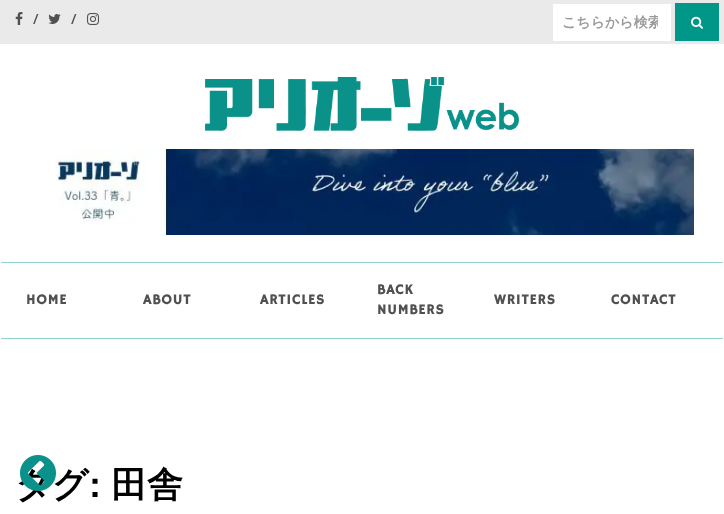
<svg xmlns="http://www.w3.org/2000/svg" width="724" height="514" viewBox="0 0 724 514">
  <style>
    .t1 { font: 600 14px Open Sans; fill: #505050; }
    .t2 { font: bold 14px WenQuanYi Zen Hei; fill: #999; }
    .t3 { font: bold 14px Hammersmith One; letter-spacing: 1px; fill: #505050; }
    .t4 { font: bold 36px WenQuanYi Zen Hei; fill: #000; }
    .t5 { font: bold 36px Liberation Sans; fill: #000; }
  </style>
  <defs>
    <clipPath id="clip1"><rect x="562" y="12" width="96" height="20"/></clipPath>
  </defs>
  <rect width="100%" height="100%" fill="#fff"/>
  <rect x="0" y="0" width="724" height="44" fill="#eaeaea"/>
  <image x="15" y="12" width="8" height="13" href="images/1.png"/>
  <text x="33" y="24" class="t1">/</text>
  <image x="48" y="14" width="13" height="10" href="images/2.png"/>
  <text x="71" y="24" class="t1">/</text>
  <image x="87" y="13" width="12" height="12" href="images/3.png"/>
  <rect x="553" y="4" width="118" height="37" fill="#fff"/>
  <g clip-path="url(#clip1)">
    <text x="562" y="27" class="t2">こちらから検索</text>
  </g>
  <rect x="675" y="3" width="44" height="38" fill="#009688"/>
  <image x="691" y="16" width="12" height="13" href="images/4.png"/>
  <image x="205" y="77" width="314" height="54" href="images/5.png"/>
  <image x="55" y="149" width="639" height="86" href="images/6.png"/>
  <rect x="1" y="262" width="722" height="1" fill="#92d3cc"/>
  <rect x="1" y="338" width="722" height="1" fill="#92d3cc"/>
  <text x="26" y="304" class="t3">HOME</text>
  <text x="143" y="304" class="t3">ABOUT</text>
  <text x="260" y="304" class="t3">ARTICLES</text>
  <text x="377" y="294" class="t3">BACK</text>
  <text x="377" y="314" class="t3">NUMBERS</text>
  <text x="494" y="304" class="t3">WRITERS</text>
  <text x="611" y="304" class="t3">CONTACT</text>
  <text x="15" y="497" class="t4">タグ</text>
  <image x="20" y="455" width="36" height="36" href="images/7.png"/>
  <text x="89" y="497" class="t5">:</text>
  <text x="111" y="497" class="t4">田舎</text>
</svg>
